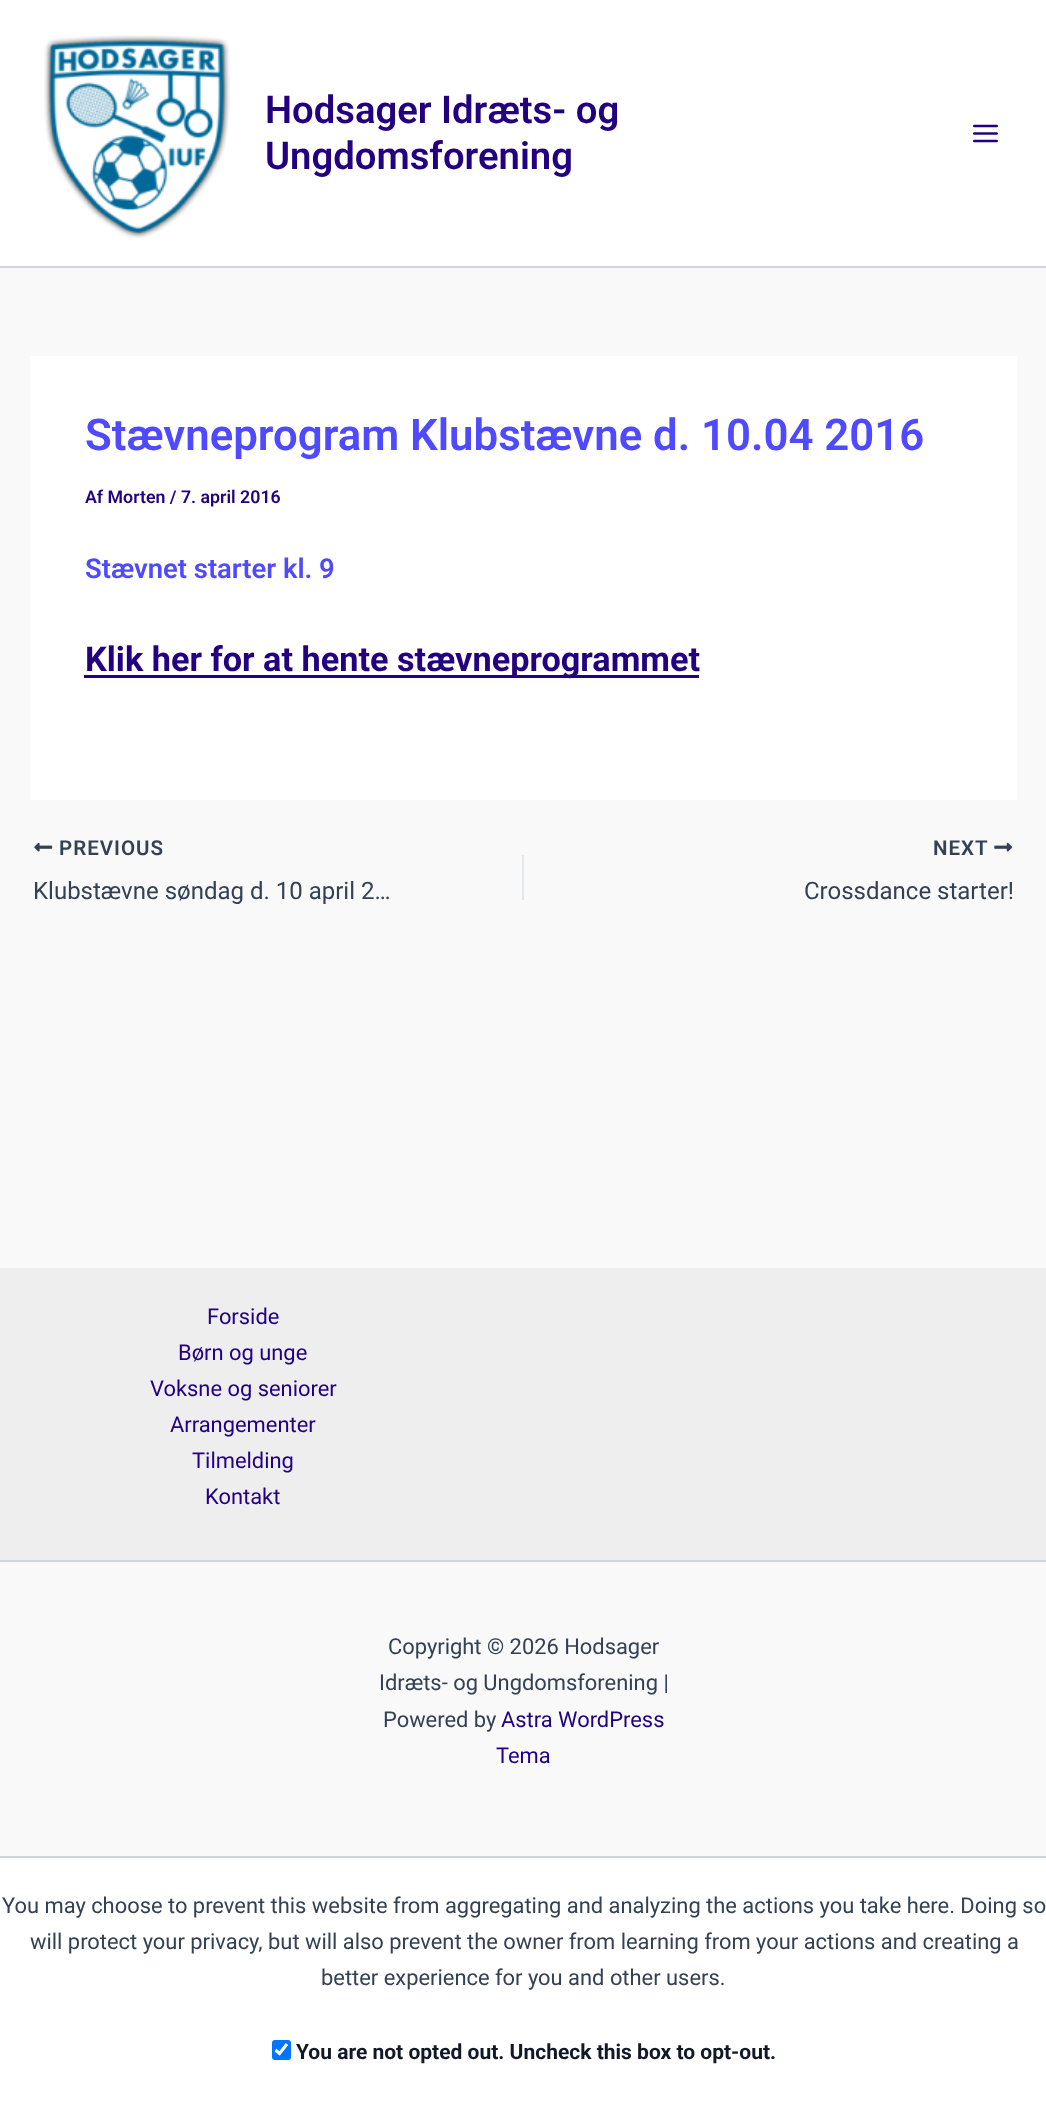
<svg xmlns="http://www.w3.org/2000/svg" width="1046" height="2115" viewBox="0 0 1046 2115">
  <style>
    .t1 { font: 600 38.25px Roboto; fill: #22007f; }
    .t2 { font: 600 43.75px Roboto; fill: #4f49ff; }
    .t3 { font: 600 17.75px Roboto; fill: #22007f; }
    .t4 { font: 600 27.4px Roboto; fill: #4f49ff; }
    .t5 { font: bold 34.25px Roboto; fill: #22007f; }
    .t6 { font: 600 20.5px Roboto; letter-spacing: 1px; fill: #334155; }
    .t7 { font: 24px Roboto; fill: #334155; }
    .t8 { font: 21.9px Roboto; fill: #22007f; }
    .t9 { font: 21.9px Roboto; fill: #334155; }
    .t10 { font: bold 21px Roboto; fill: #111827; }
  </style>
  <rect width="100%" height="100%" fill="#f9f9f9"/>
  <rect x="0" y="0" width="1046" height="266" fill="#fff"/>
  <rect x="0" y="266" width="1046" height="2" fill="#d1d5db"/>
  <image x="44" y="35" width="186" height="203" href="images/1.png"/>
  <text x="265" y="123" class="t1">Hodsager Idræts- og</text>
  <text x="265" y="169" class="t1">Ungdomsforening</text>
  <image x="973" y="124" width="25" height="19" href="images/2.png"/>
  <rect x="30" y="356" width="987" height="444" fill="#fff"/>
  <text x="85" y="450" class="t2">Stævneprogram Klubstævne d. 10.04 2016</text>
  <text x="85" y="503" class="t3">Af Morten / 7. april 2016</text>
  <text x="85" y="578" class="t4">Stævnet starter kl. 9</text>
  <rect x="84" y="675" width="615" height="3" fill="#22007f"/>
  <text x="85" y="671" class="t5">Klik her for at hente stævneprogrammet</text>
  <image x="34" y="842" width="19" height="10" href="images/3.png"/>
  <text x="59" y="855" class="t6">PREVIOUS</text>
  <text x="33" y="899" class="t7">Klubstævne søndag d. 10 april 2…</text>
  <rect x="522" y="855" width="2" height="45" fill="#e1e8ed"/>
  <text x="933" y="855" class="t6">NEXT</text>
  <image x="994" y="842" width="19" height="10" href="images/4.png"/>
  <text x="804" y="899" class="t7">Crossdance starter!</text>
  <rect x="0" y="1268" width="1046" height="292" fill="#eee"/>
  <text x="207" y="1324" class="t8">Forside</text>
  <text x="178" y="1360" class="t8">Børn og unge</text>
  <text x="150" y="1396" class="t8">Voksne og seniorer</text>
  <text x="170" y="1432" class="t8">Arrangementer</text>
  <text x="192" y="1468" class="t8">Tilmelding</text>
  <text x="205" y="1504" class="t8">Kontakt</text>
  <rect x="0" y="1560" width="1046" height="2" fill="#d1d5db"/>
  <text x="388" y="1654" class="t9">Copyright © 2026 Hodsager</text>
  <text x="379" y="1690" class="t9">Idræts- og Ungdomsforening |</text>
  <text x="383" y="1727" class="t9">Powered by</text>
  <text x="501" y="1727" class="t8">Astra WordPress</text>
  <text x="496" y="1763" class="t8">Tema</text>
  <rect x="0" y="1858" width="1046" height="257" fill="#fff"/>
  <rect x="0" y="1856" width="1046" height="2" fill="#d1d5db"/>
  <text x="2" y="1913" class="t9">You may choose to prevent this website from aggregating and analyzing the actions you take here. Doing so</text>
  <text x="30" y="1949" class="t9">will protect your privacy, but will also prevent the owner from learning from your actions and creating a</text>
  <text x="321" y="1985" class="t9">better experience for you and other users.</text>
  <rect x="272" y="2040" width="19" height="20" rx="3" fill="#0075ff"/>
  <path d="M275.5 2050L279.5 2053.5L287 2044" fill="none" stroke="#fff" stroke-width="3.1"/>
  <text x="296" y="2059" class="t10">You are not opted out. Uncheck this box to opt-out.</text>
</svg>
